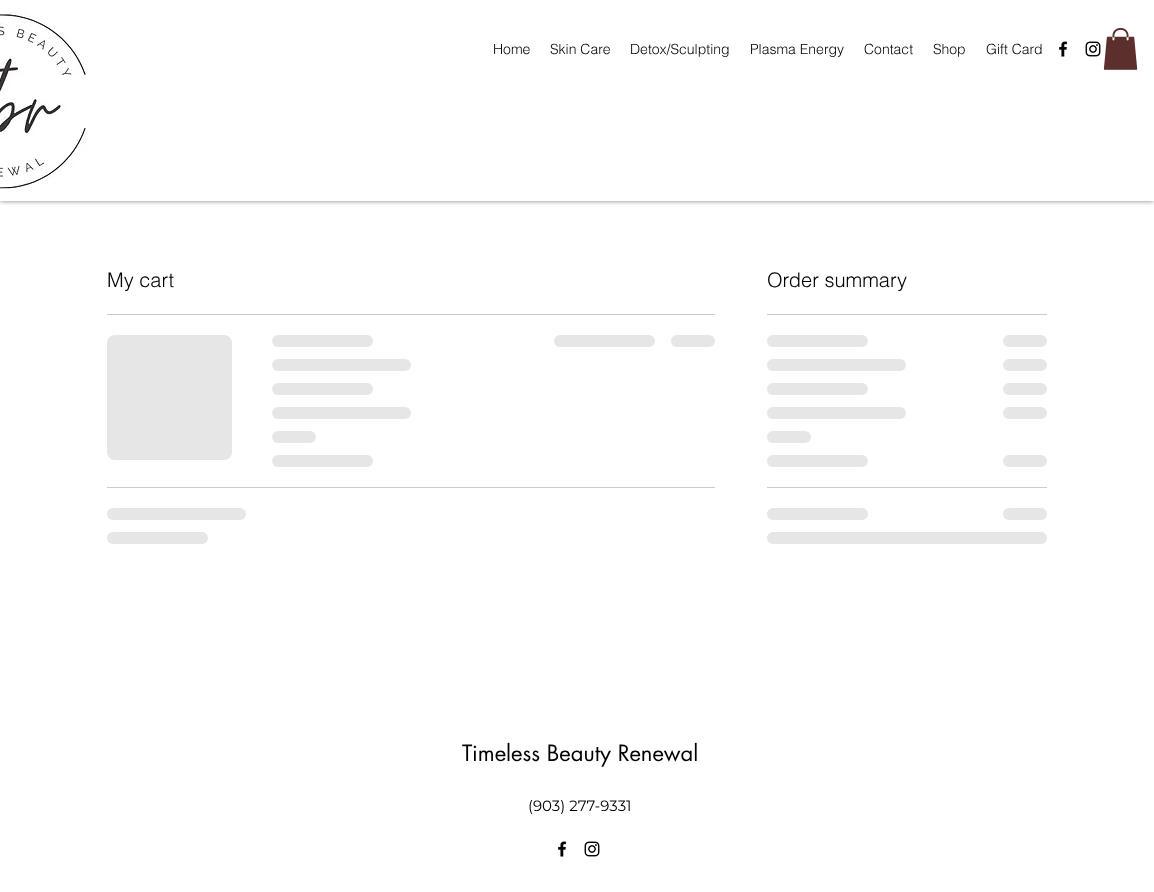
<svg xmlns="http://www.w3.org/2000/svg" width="1154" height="892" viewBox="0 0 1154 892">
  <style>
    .t1 { font: 300 14px helvetica; fill: #000; }
    .t2 { font: 300 20px helvetica; fill: #000; }
    .t3 { font: 22px futura; fill: #000; }
    .t4 { font: 15px Montserrat; fill: #000; }
  </style>
  <defs>
    <clipPath id="clip1"><rect x="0" y="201" width="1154" height="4"/></clipPath>
    <linearGradient id="g1" gradientUnits="userSpaceOnUse" x1="107" y1="398" x2="607" y2="398"><stop offset="0.25" stop-color="#e6e6e6"/><stop offset="0.37" stop-color="#ccc"/><stop offset="0.63" stop-color="#e6e6e6"/></linearGradient>
    <linearGradient id="g2" gradientUnits="userSpaceOnUse" x1="272" y1="341" x2="676" y2="341"><stop offset="0.25" stop-color="#e6e6e6"/><stop offset="0.37" stop-color="#ccc"/><stop offset="0.63" stop-color="#e6e6e6"/></linearGradient>
    <linearGradient id="g3" gradientUnits="userSpaceOnUse" x1="272" y1="365" x2="828" y2="365"><stop offset="0.25" stop-color="#e6e6e6"/><stop offset="0.37" stop-color="#ccc"/><stop offset="0.63" stop-color="#e6e6e6"/></linearGradient>
    <linearGradient id="g4" gradientUnits="userSpaceOnUse" x1="272" y1="389" x2="676" y2="389"><stop offset="0.25" stop-color="#e6e6e6"/><stop offset="0.37" stop-color="#ccc"/><stop offset="0.63" stop-color="#e6e6e6"/></linearGradient>
    <linearGradient id="g5" gradientUnits="userSpaceOnUse" x1="272" y1="413" x2="828" y2="413"><stop offset="0.25" stop-color="#e6e6e6"/><stop offset="0.37" stop-color="#ccc"/><stop offset="0.63" stop-color="#e6e6e6"/></linearGradient>
    <linearGradient id="g6" gradientUnits="userSpaceOnUse" x1="272" y1="437" x2="448" y2="437"><stop offset="0.25" stop-color="#e6e6e6"/><stop offset="0.37" stop-color="#ccc"/><stop offset="0.63" stop-color="#e6e6e6"/></linearGradient>
    <linearGradient id="g7" gradientUnits="userSpaceOnUse" x1="272" y1="461" x2="676" y2="461"><stop offset="0.25" stop-color="#e6e6e6"/><stop offset="0.37" stop-color="#ccc"/><stop offset="0.63" stop-color="#e6e6e6"/></linearGradient>
    <linearGradient id="g8" gradientUnits="userSpaceOnUse" x1="554" y1="341" x2="958" y2="341"><stop offset="0.25" stop-color="#e6e6e6"/><stop offset="0.37" stop-color="#ccc"/><stop offset="0.63" stop-color="#e6e6e6"/></linearGradient>
    <linearGradient id="g9" gradientUnits="userSpaceOnUse" x1="671" y1="341" x2="847" y2="341"><stop offset="0.25" stop-color="#e6e6e6"/><stop offset="0.37" stop-color="#ccc"/><stop offset="0.63" stop-color="#e6e6e6"/></linearGradient>
    <linearGradient id="g10" gradientUnits="userSpaceOnUse" x1="107" y1="514" x2="663" y2="514"><stop offset="0.25" stop-color="#e6e6e6"/><stop offset="0.37" stop-color="#ccc"/><stop offset="0.63" stop-color="#e6e6e6"/></linearGradient>
    <linearGradient id="g11" gradientUnits="userSpaceOnUse" x1="107" y1="538" x2="511" y2="538"><stop offset="0.25" stop-color="#e6e6e6"/><stop offset="0.37" stop-color="#ccc"/><stop offset="0.63" stop-color="#e6e6e6"/></linearGradient>
    <linearGradient id="g12" gradientUnits="userSpaceOnUse" x1="767" y1="341" x2="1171" y2="341"><stop offset="0.25" stop-color="#e6e6e6"/><stop offset="0.37" stop-color="#ccc"/><stop offset="0.63" stop-color="#e6e6e6"/></linearGradient>
    <linearGradient id="g13" gradientUnits="userSpaceOnUse" x1="1003" y1="341" x2="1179" y2="341"><stop offset="0.25" stop-color="#e6e6e6"/><stop offset="0.37" stop-color="#ccc"/><stop offset="0.63" stop-color="#e6e6e6"/></linearGradient>
    <linearGradient id="g14" gradientUnits="userSpaceOnUse" x1="767" y1="365" x2="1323" y2="365"><stop offset="0.25" stop-color="#e6e6e6"/><stop offset="0.37" stop-color="#ccc"/><stop offset="0.63" stop-color="#e6e6e6"/></linearGradient>
    <linearGradient id="g15" gradientUnits="userSpaceOnUse" x1="1003" y1="365" x2="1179" y2="365"><stop offset="0.25" stop-color="#e6e6e6"/><stop offset="0.37" stop-color="#ccc"/><stop offset="0.63" stop-color="#e6e6e6"/></linearGradient>
    <linearGradient id="g16" gradientUnits="userSpaceOnUse" x1="767" y1="389" x2="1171" y2="389"><stop offset="0.25" stop-color="#e6e6e6"/><stop offset="0.37" stop-color="#ccc"/><stop offset="0.63" stop-color="#e6e6e6"/></linearGradient>
    <linearGradient id="g17" gradientUnits="userSpaceOnUse" x1="1003" y1="389" x2="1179" y2="389"><stop offset="0.25" stop-color="#e6e6e6"/><stop offset="0.37" stop-color="#ccc"/><stop offset="0.63" stop-color="#e6e6e6"/></linearGradient>
    <linearGradient id="g18" gradientUnits="userSpaceOnUse" x1="767" y1="413" x2="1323" y2="413"><stop offset="0.25" stop-color="#e6e6e6"/><stop offset="0.37" stop-color="#ccc"/><stop offset="0.63" stop-color="#e6e6e6"/></linearGradient>
    <linearGradient id="g19" gradientUnits="userSpaceOnUse" x1="1003" y1="413" x2="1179" y2="413"><stop offset="0.25" stop-color="#e6e6e6"/><stop offset="0.37" stop-color="#ccc"/><stop offset="0.63" stop-color="#e6e6e6"/></linearGradient>
    <linearGradient id="g20" gradientUnits="userSpaceOnUse" x1="767" y1="437" x2="943" y2="437"><stop offset="0.25" stop-color="#e6e6e6"/><stop offset="0.37" stop-color="#ccc"/><stop offset="0.63" stop-color="#e6e6e6"/></linearGradient>
    <linearGradient id="g21" gradientUnits="userSpaceOnUse" x1="767" y1="461" x2="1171" y2="461"><stop offset="0.25" stop-color="#e6e6e6"/><stop offset="0.37" stop-color="#ccc"/><stop offset="0.63" stop-color="#e6e6e6"/></linearGradient>
    <linearGradient id="g22" gradientUnits="userSpaceOnUse" x1="1003" y1="461" x2="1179" y2="461"><stop offset="0.25" stop-color="#e6e6e6"/><stop offset="0.37" stop-color="#ccc"/><stop offset="0.63" stop-color="#e6e6e6"/></linearGradient>
    <linearGradient id="g23" gradientUnits="userSpaceOnUse" x1="767" y1="514" x2="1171" y2="514"><stop offset="0.25" stop-color="#e6e6e6"/><stop offset="0.37" stop-color="#ccc"/><stop offset="0.63" stop-color="#e6e6e6"/></linearGradient>
    <linearGradient id="g24" gradientUnits="userSpaceOnUse" x1="1003" y1="514" x2="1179" y2="514"><stop offset="0.25" stop-color="#e6e6e6"/><stop offset="0.37" stop-color="#ccc"/><stop offset="0.63" stop-color="#e6e6e6"/></linearGradient>
    <linearGradient id="g25" gradientUnits="userSpaceOnUse" x1="767" y1="538" x2="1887" y2="538"><stop offset="0.25" stop-color="#e6e6e6"/><stop offset="0.37" stop-color="#ccc"/><stop offset="0.63" stop-color="#e6e6e6"/></linearGradient>
  </defs>
  <rect width="100%" height="100%" fill="#fff"/>
  <g clip-path="url(#clip1)">
    <rect x="0" y="0" width="1154" height="201" fill="#00000080" filter="blur(2.5px)"/>
  </g>
  <image x="0" y="11" width="87" height="178" href="images/1.png"/>
  <text x="493" y="54" class="t1">Home</text>
  <text x="550" y="54" class="t1">Skin Care</text>
  <text x="630" y="54" class="t1">Detox/Sculpting</text>
  <text x="750" y="54" class="t1">Plasma Energy</text>
  <text x="864" y="54" class="t1">Contact</text>
  <text x="933" y="54" class="t1">Shop</text>
  <text x="986" y="54" class="t1">Gift Card</text>
  <image x="1059" y="41" width="9" height="16" href="images/2.png"/>
  <image x="1085" y="41" width="16" height="16" href="images/3.png"/>
  <image x="1103" y="28" width="35" height="42" href="images/4.png"/>
  <rect x="107" y="314" width="608" height="1" fill="#ccc"/>
  <text x="107" y="287" class="t2">My cart</text>
  <rect x="107" y="335" width="125" height="125" rx="8" fill="url(#g1)"/>
  <rect x="272" y="335" width="101" height="12" rx="6" fill="url(#g2)"/>
  <rect x="272" y="359" width="139" height="12" rx="6" fill="url(#g3)"/>
  <rect x="272" y="383" width="101" height="12" rx="6" fill="url(#g4)"/>
  <rect x="272" y="407" width="139" height="12" rx="6" fill="url(#g5)"/>
  <rect x="272" y="431" width="44" height="12" rx="6" fill="url(#g6)"/>
  <rect x="272" y="455" width="101" height="12" rx="6" fill="url(#g7)"/>
  <rect x="554" y="335" width="101" height="12" rx="6" fill="url(#g8)"/>
  <rect x="671" y="335" width="44" height="12" rx="6" fill="url(#g9)"/>
  <rect x="107" y="487" width="608" height="1" fill="#ccc"/>
  <rect x="107" y="508" width="139" height="12" rx="6" fill="url(#g10)"/>
  <rect x="107" y="532" width="101" height="12" rx="6" fill="url(#g11)"/>
  <rect x="767" y="314" width="280" height="1" fill="#ccc"/>
  <text x="767" y="287" class="t2">Order summary</text>
  <rect x="767" y="335" width="101" height="12" rx="6" fill="url(#g12)"/>
  <rect x="1003" y="335" width="44" height="12" rx="6" fill="url(#g13)"/>
  <rect x="767" y="359" width="139" height="12" rx="6" fill="url(#g14)"/>
  <rect x="1003" y="359" width="44" height="12" rx="6" fill="url(#g15)"/>
  <rect x="767" y="383" width="101" height="12" rx="6" fill="url(#g16)"/>
  <rect x="1003" y="383" width="44" height="12" rx="6" fill="url(#g17)"/>
  <rect x="767" y="407" width="139" height="12" rx="6" fill="url(#g18)"/>
  <rect x="1003" y="407" width="44" height="12" rx="6" fill="url(#g19)"/>
  <rect x="767" y="431" width="44" height="12" rx="6" fill="url(#g20)"/>
  <rect x="767" y="455" width="101" height="12" rx="6" fill="url(#g21)"/>
  <rect x="1003" y="455" width="44" height="12" rx="6" fill="url(#g22)"/>
  <rect x="767" y="487" width="280" height="1" fill="#ccc"/>
  <rect x="767" y="508" width="101" height="12" rx="6" fill="url(#g23)"/>
  <rect x="1003" y="508" width="44" height="12" rx="6" fill="url(#g24)"/>
  <rect x="767" y="532" width="280" height="12" rx="6" fill="url(#g25)"/>
  <text x="462" y="761" class="t3">Timeless Beauty Renewal</text>
  <text x="528" y="811" class="t4">(903) 277-9331</text>
  <image x="558" y="841" width="9" height="16" href="images/2.png"/>
  <image x="584" y="841" width="16" height="16" href="images/3.png"/>
</svg>
